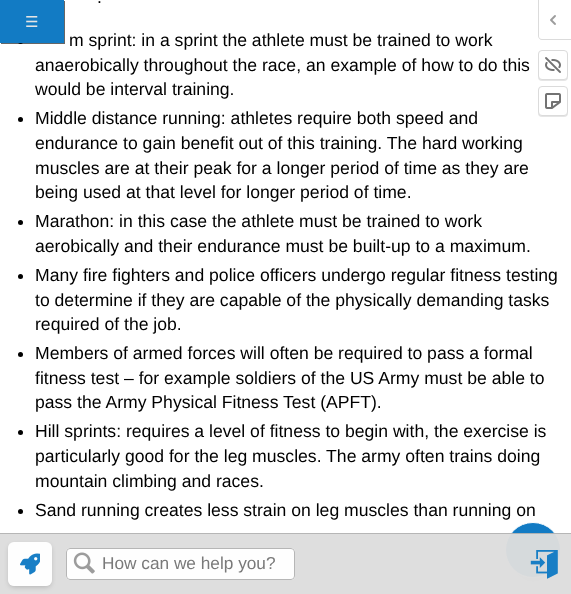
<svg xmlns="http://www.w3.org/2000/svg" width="571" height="594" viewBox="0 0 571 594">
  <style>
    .t1 { font: 15px DejaVu Sans; fill: #e5e5e5; }
    .t2 { font: 17.6px Liberation Sans; fill: #000; }
    .t3 { font: 17.25px Liberation Sans; fill: #797979; }
  </style>
  <defs>
    <clipPath id="clip1"><path d="M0 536H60V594H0ZM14 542H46C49.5 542 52 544.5 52 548V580C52 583.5 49.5 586 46 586H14C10.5 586 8 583.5 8 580V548C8 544.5 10.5 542 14 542Z" clip-rule="evenodd"/></clipPath>
  </defs>
  <rect width="100%" height="100%" fill="#fff"/>
  <path d="M538 0H571V40H542C540 40 538 38 538 36ZM539 0H571V39H542C540 39 539 38 539 36Z" fill="#dbdbdb" fill-rule="evenodd"/>
  <image x="550" y="15" width="6" height="10" href="images/1.png"/>
  <rect x="538" y="51" width="30" height="30" rx="4" fill="#0000001a" filter="blur(0.5px)"/>
  <rect x="538.5" y="50.5" width="29" height="29" rx="3.5" fill="#fff" stroke="#dbdbdb"/>
  <image x="545" y="57" width="16" height="16" href="images/2.png"/>
  <rect x="538" y="87" width="30" height="30" rx="4" fill="#0000001a" filter="blur(0.5px)"/>
  <rect x="538.5" y="86.5" width="29" height="29" rx="3.5" fill="#fff" stroke="#dbdbdb"/>
  <image x="545" y="93" width="16" height="16" href="images/3.png"/>
  <circle cx="20.5" cy="41.5" r="2.5" fill="#000"/>
  <rect x="1" y="1" width="64" height="43" fill="#00000099" filter="blur(0.5px)"/>
  <rect x="0" y="0" width="64" height="43" fill="#127bc4"/>
  <text x="25" y="27" class="t1">☰</text>
  <text x="97" y="3" class="t2">.</text>
  <text x="69" y="46" class="t2">m sprint: in a sprint the athlete must be trained to work</text>
  <text x="35" y="71" class="t2">anaerobically throughout the race, an example of how to do this</text>
  <text x="35" y="95" class="t2">would be interval training.</text>
  <circle cx="20.5" cy="119.5" r="2.5" fill="#000"/>
  <text x="35" y="124" class="t2">Middle distance running: athletes require both speed and</text>
  <text x="35" y="149" class="t2">endurance to gain benefit out of this training. The hard working</text>
  <text x="35" y="174" class="t2">muscles are at their peak for a longer period of time as they are</text>
  <text x="35" y="198" class="t2">being used at that level for longer period of time.</text>
  <circle cx="20.5" cy="222.5" r="2.5" fill="#000"/>
  <text x="35" y="227" class="t2">Marathon: in this case the athlete must be trained to work</text>
  <text x="35" y="252" class="t2">aerobically and their endurance must be built-up to a maximum.</text>
  <circle cx="20.5" cy="276.5" r="2.5" fill="#000"/>
  <text x="35" y="281" class="t2">Many fire fighters and police officers undergo regular fitness testing</text>
  <text x="35" y="306" class="t2">to determine if they are capable of the physically demanding tasks</text>
  <text x="35" y="330" class="t2">required of the job.</text>
  <circle cx="20.5" cy="354.5" r="2.5" fill="#000"/>
  <text x="35" y="359" class="t2">Members of armed forces will often be required to pass a formal</text>
  <text x="35" y="384" class="t2">fitness test – for example soldiers of the US Army must be able to</text>
  <text x="35" y="408" class="t2">pass the Army Physical Fitness Test (APFT).</text>
  <circle cx="20.5" cy="432.5" r="2.5" fill="#000"/>
  <text x="35" y="437" class="t2">Hill sprints: requires a level of fitness to begin with, the exercise is</text>
  <text x="35" y="462" class="t2">particularly good for the leg muscles. The army often trains doing</text>
  <text x="35" y="487" class="t2">mountain climbing and races.</text>
  <circle cx="20.5" cy="511.5" r="2.5" fill="#000"/>
  <text x="35" y="516" class="t2">Sand running creates less strain on leg muscles than running on</text>
  <rect x="511" y="536" width="44" height="44" rx="22" fill="#0000001a" filter="blur(5px)"/>
  <rect x="510" y="547" width="46" height="46" rx="23" fill="#0000001a" filter="blur(12.5px)"/>
  <circle cx="533" cy="550" r="27.5" fill="#127bc4" stroke="#fff"/>
  <rect x="0" y="534" width="571" height="60" fill="#ddddddf7"/>
  <rect x="0" y="533" width="571" height="1" fill="#b4b4b4f7"/>
  <g clip-path="url(#clip1)">
    <rect x="9" y="545" width="42" height="42" rx="5" fill="#00000030" filter="blur(2.5px)"/>
  </g>
  <rect x="8" y="542" width="44" height="44" rx="6" fill="#fffffff7"/>
  <image x="20" y="553" width="20" height="22" href="images/4.png"/>
  <rect x="66" y="548" width="229" height="32" rx="4" fill="#fffffff7"/>
  <rect x="66.5" y="548.5" width="228" height="31" rx="3.5" fill="none" stroke="#b4b4b4f7"/>
  <image x="73" y="552" width="22" height="22" href="images/5.png"/>
  <text x="102" y="569" class="t3">How can we help you?</text>
  <image x="530" y="550" width="28" height="29" href="images/6.png"/>
</svg>
